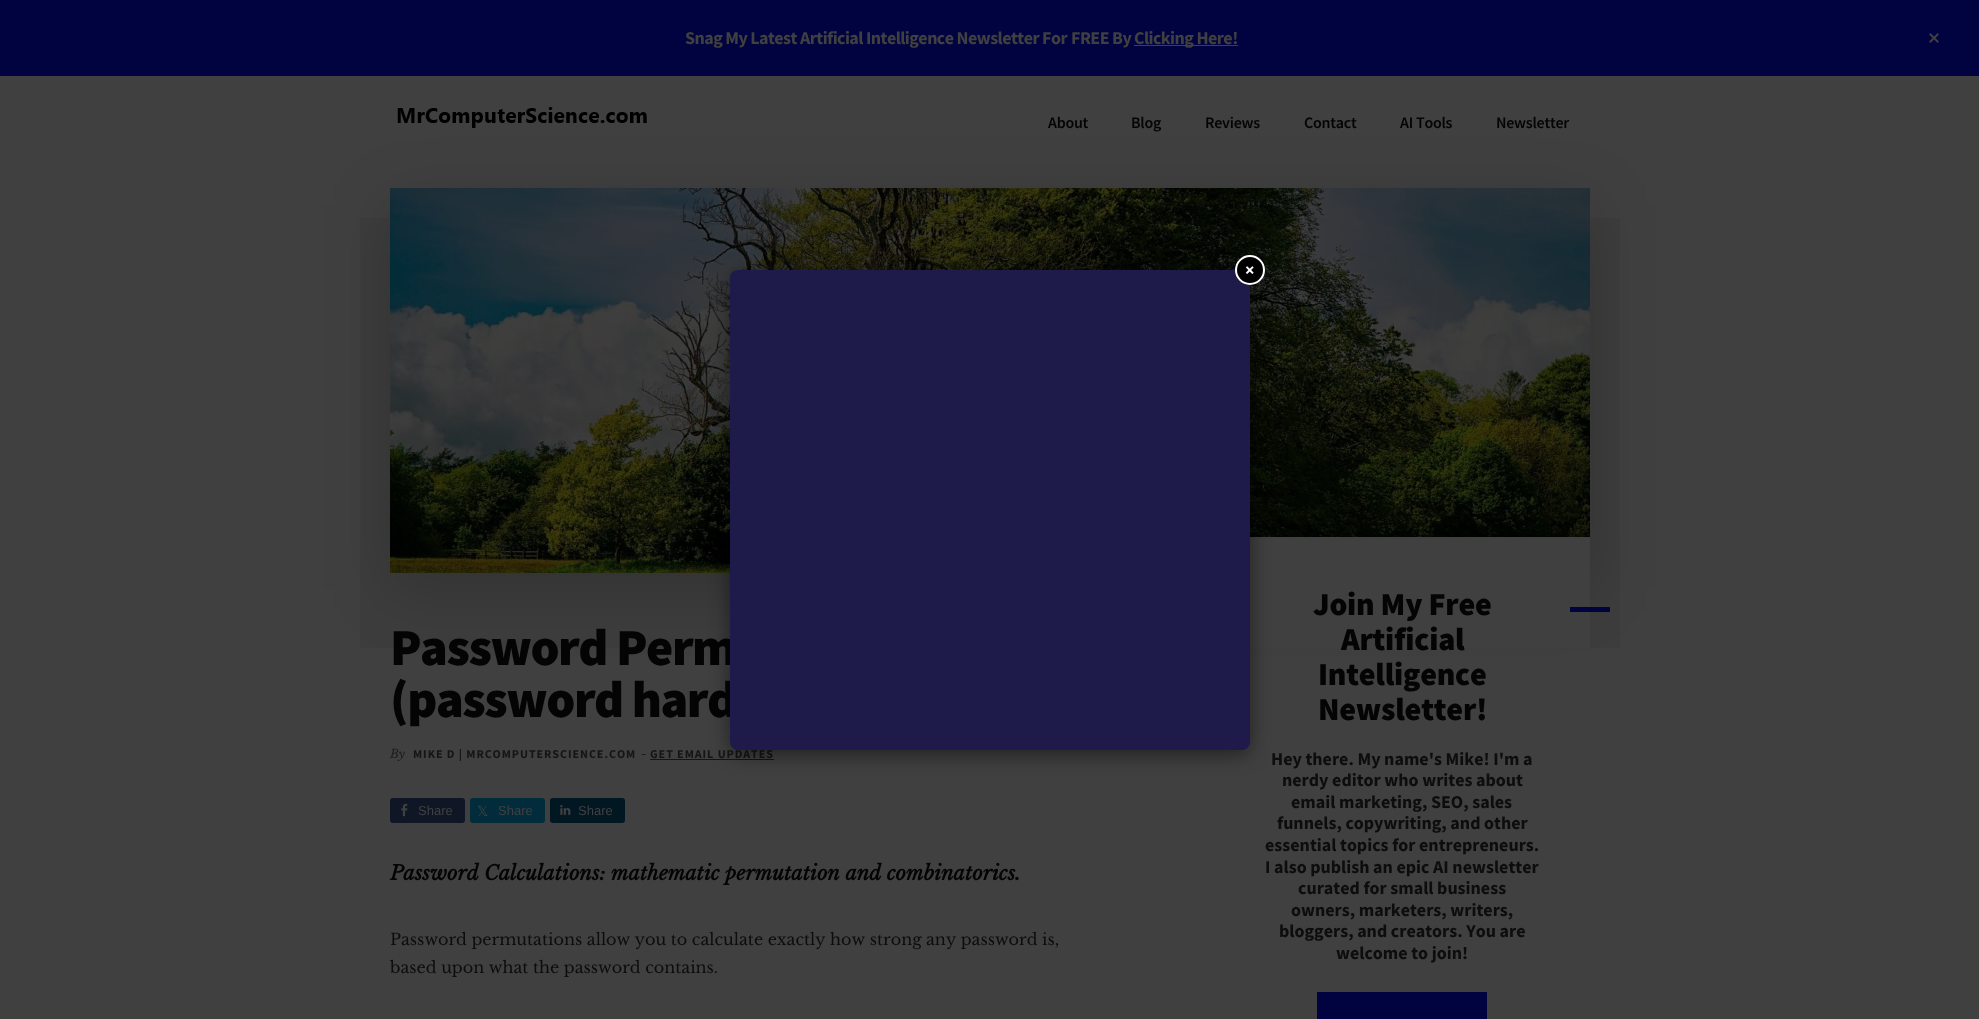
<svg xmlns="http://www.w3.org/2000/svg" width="1979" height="1019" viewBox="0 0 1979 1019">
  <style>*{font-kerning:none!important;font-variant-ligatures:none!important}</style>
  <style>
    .t1 { font: bold 18px Source Sans Pro; letter-spacing: -0.55px; fill: #404040; }
    .t2 { font: 600 16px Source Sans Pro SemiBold; letter-spacing: -0.25px; fill: #040404; }
    .t3 { font: 900 52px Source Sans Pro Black; letter-spacing: -1.5px; fill: #040404; }
    .t4 { font: italic 12px Libre Baskerville; fill: #1c1c1c; }
    .t5 { font: bold 12px Source Sans Pro; letter-spacing: 0.95px; fill: #151515; }
    .t6 { font: 13px Liberation Sans; fill: #404040; }
    .t7 { font: 14px DejaVu Sans; fill: #404040; }
    .t8 { font: italic bold 20px Libre Baskerville; fill: #040404; }
    .t9 { font: 16px Libre Baskerville; fill: #0d0d0d; }
    .t10 { font: 900 32px Source Sans Pro Black; letter-spacing: -0.25px; fill: #040404; }
    .t11 { font: bold 18px Source Sans Pro; fill: #0d0d0d; }
    .t12 { font: bold 18px Source Sans Pro; fill: #fff; }
  </style>
  <rect width="100%" height="100%" fill="#404040"/>
  <rect x="0" y="0" width="1979" height="76" fill="#000340"/>
  <text x="685" y="44" class="t1">Snag My Latest Artificial Intelligence Newsletter For</text>
  <text x="1071" y="44" class="t1">FREE By</text>
  <rect x="1134" y="45" width="104" height="1" fill="#404040"/>
  <text x="1134" y="44" class="t1">Clicking Here!</text>
  <image x="1929" y="33" width="10" height="10" href="images/1.png"/>
  <image x="397" y="107" width="250" height="21" href="images/2.png"/>
  <text x="1048" y="128" class="t2">About</text>
  <text x="1131" y="128" class="t2">Blog</text>
  <text x="1205" y="128" class="t2">Reviews</text>
  <text x="1304" y="128" class="t2">Contact</text>
  <text x="1400" y="128" class="t2">AI Tools</text>
  <text x="1496" y="128" class="t2">Newsletter</text>
  <rect x="360" y="218" width="1260" height="430" fill="#3d3d3d"/>
  <rect x="390" y="204" width="1200" height="385" fill="#0000002e" filter="blur(32.5px)"/>
  <image x="390" y="188" width="1200" height="385" href="images/3.png"/>
  <text x="390" y="665" class="t3">Password Perm</text>
  <text x="390" y="717" class="t3">(password hard</text>
  <text x="390" y="758" class="t4">By</text>
  <text x="413" y="758" class="t5">MIKE D | MRCOMPUTERSCIENCE.COM</text>
  <text x="641" y="758" class="t4">-</text>
  <text x="650" y="758" class="t5">GET EMAIL UPDATES</text>
  <rect x="650" y="759" width="124" height="1" fill="#151515"/>
  <rect x="390" y="798" width="75" height="25" rx="3" fill="#0f1726"/>
  <image x="401" y="803" width="7" height="14" href="images/4.png"/>
  <text x="418" y="815" class="t6">Share</text>
  <rect x="470" y="798" width="75" height="25" rx="3" fill="#022c3b"/>
  <text x="477" y="816" class="t7">𝕏</text>
  <text x="498" y="815" class="t6">Share</text>
  <rect x="550" y="798" width="75" height="25" rx="3" fill="#011722"/>
  <image x="560" y="805" width="11" height="10" href="images/5.png"/>
  <text x="578" y="815" class="t6">Share</text>
  <text x="390" y="880" class="t8">Password Calculations: mathematic permutation and combinatorics.</text>
  <text x="390" y="945" class="t9">Password permutations allow you to calculate exactly how strong</text>
  <text x="926" y="945" class="t9">any password is,</text>
  <text x="390" y="973" class="t9">based upon what the password contains.</text>
  <rect x="1215" y="537" width="375" height="111" fill="#404040"/>
  <text x="1313" y="615" class="t10">Join My Free</text>
  <text x="1341" y="650" class="t10">Artificial</text>
  <text x="1318" y="685" class="t10">Intelligence</text>
  <text x="1318" y="720" class="t10">Newsletter!</text>
  <text x="1271" y="765" class="t11">Hey there. My name's Mike! I'm a</text>
  <text x="1282" y="786" class="t11">nerdy editor who writes about</text>
  <text x="1291" y="808" class="t11">email marketing, SEO, sales</text>
  <text x="1277" y="829" class="t11">funnels, copywriting, and other</text>
  <text x="1265" y="851" class="t11">essential topics for entrepreneurs.</text>
  <text x="1265" y="873" class="t11">I also publish an epic AI newsletter</text>
  <text x="1298" y="894" class="t11">curated for small business</text>
  <text x="1291" y="916" class="t11">owners, marketers, writers,</text>
  <text x="1279" y="937" class="t11">bloggers, and creators. You are</text>
  <text x="1336" y="959" class="t11">welcome to join!</text>
  <rect x="1317" y="992" width="170" height="27" fill="#000340"/>
  <rect x="1570" y="607" width="40" height="5" fill="#000340"/>
  <rect x="730" y="274" width="520" height="480" rx="8" fill="#00000080" filter="blur(10px)"/>
  <rect x="730" y="270" width="520" height="480" rx="8" fill="#1e1b4b"/>
  <circle cx="1250" cy="270" r="14" fill="#000" stroke="#fff" stroke-width="2"/>
  <text x="1245" y="276" class="t12">×</text>
</svg>
